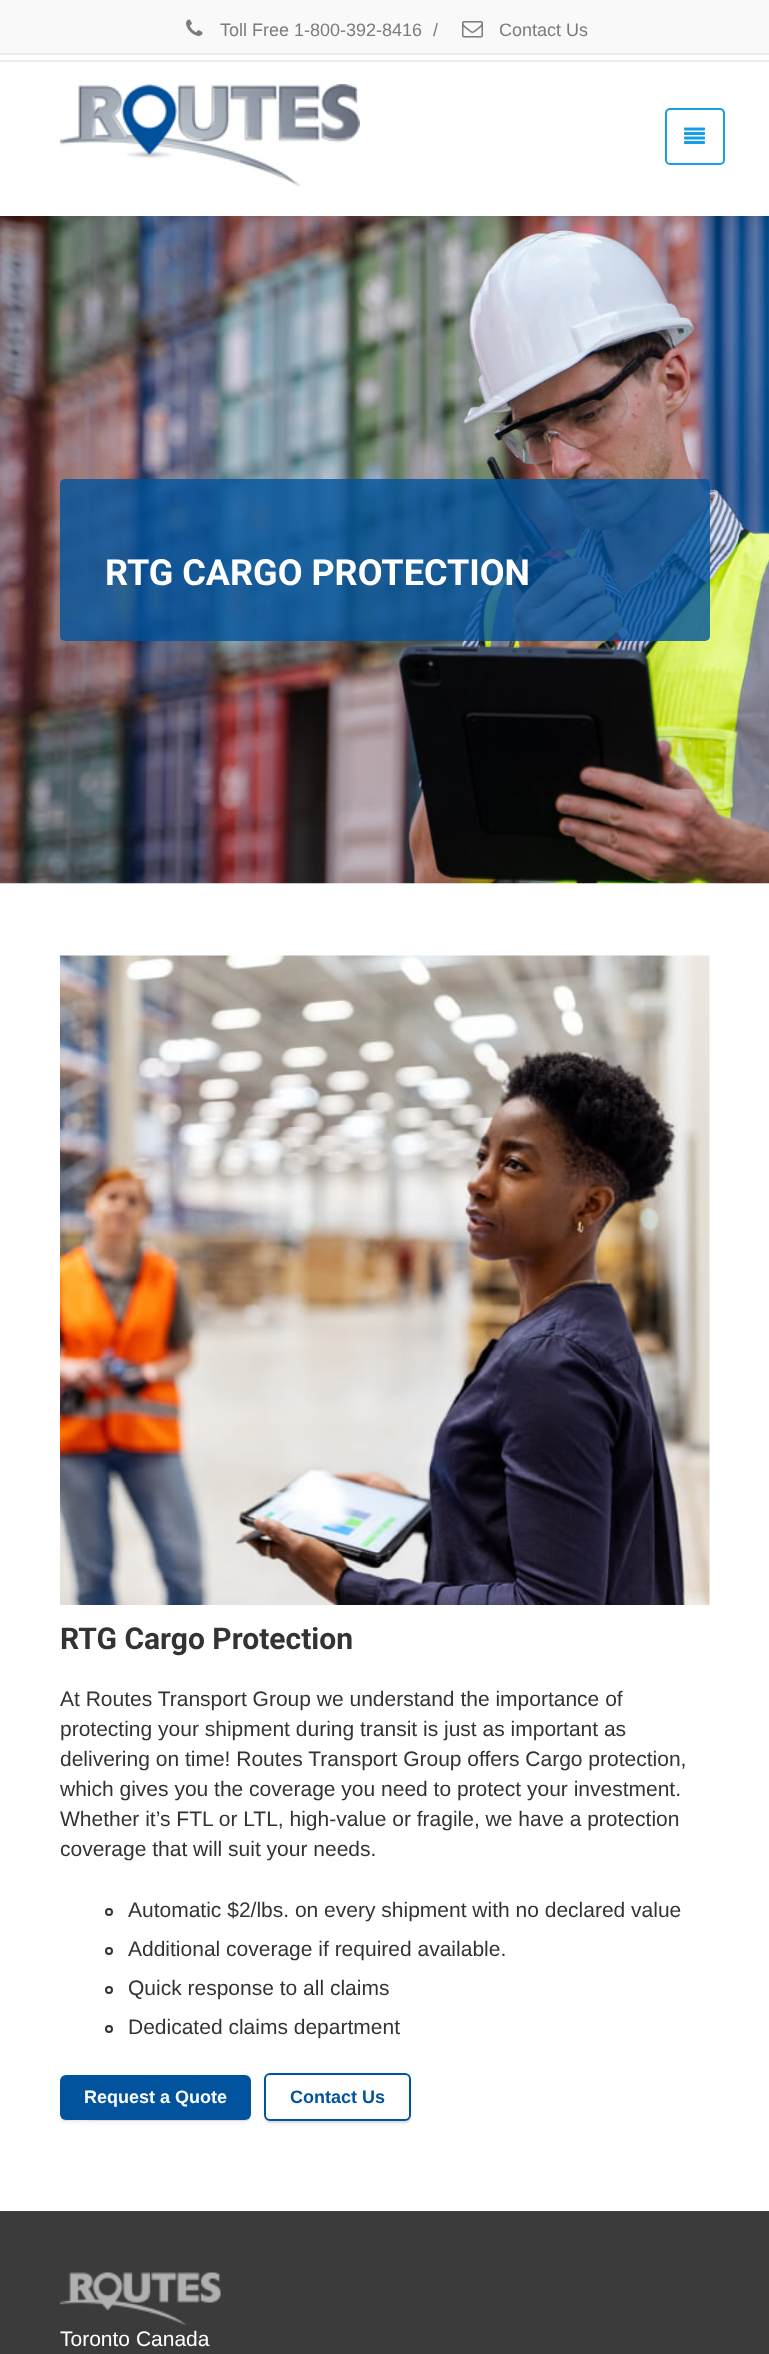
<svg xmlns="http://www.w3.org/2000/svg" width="769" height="2354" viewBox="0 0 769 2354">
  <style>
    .t1 { font: 18px Liberation Sans; fill: #7c7c7c; }
    .t2 { font: bold 36px Roboto; fill: #fff; }
    .t3 { font: bold 30px Roboto; fill: #333; }
    .t4 { font: 21px Liberation Sans; fill: #333; }
    .t5 { font: bold 18px Liberation Sans; fill: #fff; }
    .t6 { font: bold 18px Liberation Sans; fill: #00539c; }
    .t7 { font: 21px Liberation Sans; fill: #fff; }
  </style>
  <rect width="100%" height="100%" fill="#fff"/>
  <image x="0" y="216" width="769" height="668" href="images/5.png"/>
  <rect x="0" y="3" width="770" height="216" fill="#0000001a" filter="blur(7.5px)"/>
  <rect x="0" y="0" width="769" height="53" fill="#f9f9f9"/>
  <rect x="0" y="53" width="769" height="2" fill="#ebebeb"/>
  <rect x="0" y="55" width="769" height="161" fill="#fff"/>
  <rect x="0" y="60" width="769" height="2" fill="#ebebeb"/>
  <image x="186" y="19" width="17" height="17" href="images/1.png"/>
  <text x="220" y="36" class="t1">Toll Free 1-800-392-8416</text>
  <text x="433" y="36" class="t1">/</text>
  <image x="462" y="21" width="21" height="17" href="images/2.png"/>
  <text x="499" y="36" class="t1">Contact Us</text>
  <image x="60" y="84" width="300" height="102" href="images/3.png"/>
  <rect x="666" y="109" width="58" height="55" rx="4" fill="none" stroke="#169fe6" stroke-width="2"/>
  <image x="684" y="127" width="21" height="17" href="images/4.png"/>
  <rect x="60" y="479" width="650" height="162" rx="5" fill="#00539ccc"/>
  <text x="105" y="585" class="t2">RTG CARGO PROTECTION</text>
  <image x="60" y="955" width="650" height="650" href="images/6.png"/>
  <text x="60" y="1649" class="t3">RTG Cargo Protection</text>
  <text x="60" y="1706" class="t4">At Routes Transport Group we understand the importance of</text>
  <text x="60" y="1736" class="t4">protecting your shipment during transit is just as important as</text>
  <text x="60" y="1766" class="t4">delivering on time! Routes Transport Group offers Cargo protection,</text>
  <text x="60" y="1796" class="t4">which gives you the coverage you need to protect your investment.</text>
  <text x="60" y="1826" class="t4">Whether it’s FTL or LTL, high-value or fragile, we have a protection</text>
  <text x="60" y="1856" class="t4">coverage that will suit your needs.</text>
  <circle cx="109" cy="1912" r="3" fill="none" stroke="#333" stroke-width="2"/>
  <text x="128" y="1917" class="t4">Automatic $2/lbs. on every shipment with no declared value</text>
  <circle cx="109" cy="1951" r="3" fill="none" stroke="#333" stroke-width="2"/>
  <text x="128" y="1956" class="t4">Additional coverage if required available.</text>
  <circle cx="109" cy="1990" r="3" fill="none" stroke="#333" stroke-width="2"/>
  <text x="128" y="1995" class="t4">Quick response to all claims</text>
  <circle cx="109" cy="2029" r="3" fill="none" stroke="#333" stroke-width="2"/>
  <text x="128" y="2034" class="t4">Dedicated claims department</text>
  <path d="M60 2114V2115C60 2118 63 2121 66 2121H245C248 2121 251 2118 251 2115V2082L250 2079V2102C250 2107 253 2119 244 2120H96C84 2120 60 2124 60 2114Z" fill="#ebebeb"/>
  <rect x="60" y="2078" width="191" height="45" rx="6" fill="#0000000d" filter="blur(1.5px)"/>
  <rect x="60" y="2075" width="191" height="45" rx="6" fill="#00539c"/>
  <text x="84" y="2103" class="t5">Request a Quote</text>
  <path d="M264 2115V2117C264 2120 267 2123 270 2123H405C408 2123 411 2120 411 2117V2115C411 2118 408 2121 405 2121H270C267 2121 264 2118 264 2115Z" fill="#ebebeb"/>
  <rect x="264" y="2076" width="147" height="48" rx="6" fill="#0000000d" filter="blur(1.5px)"/>
  <rect x="265" y="2074" width="145" height="46" rx="5" fill="#fff" stroke="#00539c" stroke-width="2"/>
  <text x="290" y="2103" class="t6">Contact Us</text>
  <rect x="0" y="2211" width="769" height="143" fill="#3b3b3b"/>
  <image x="60" y="2272" width="161" height="53" href="images/7.png"/>
  <text x="60" y="2346" class="t7">Toronto Canada</text>
</svg>
